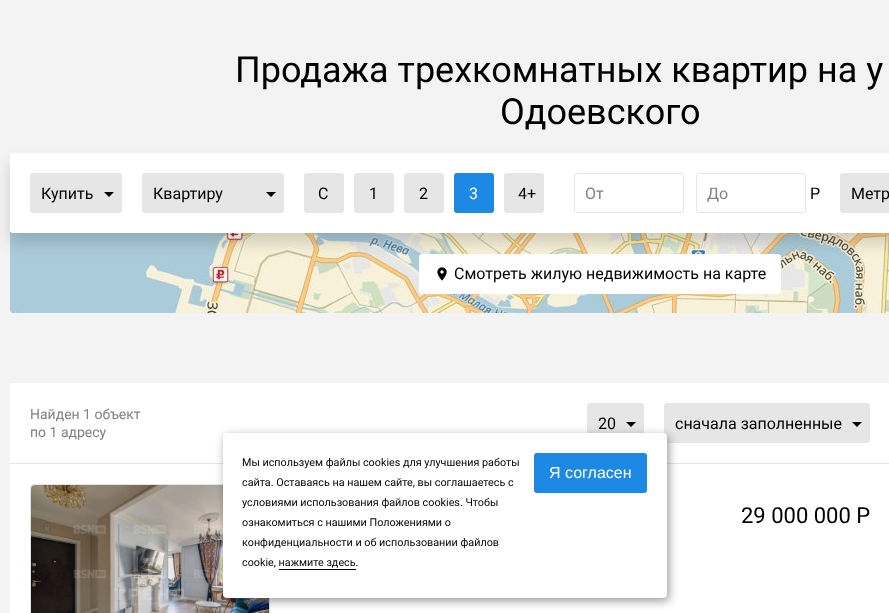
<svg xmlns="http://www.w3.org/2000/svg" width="889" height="613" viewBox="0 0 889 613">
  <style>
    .t1 { font: 36px Roboto; fill: #000; }
    .t2 { font: 16px Roboto; fill: #000; }
    .t3 { font: 16px Roboto; fill: #fff; }
    .t4 { font: 16px Roboto; fill: #818181; }
    .t5 { font: 14px Roboto; fill: #818181; }
    .t6 { font: 22px Roboto; fill: #000; }
    .t7 { font: 10.8px Roboto; fill: #000; }
    .t8 { font: 16px Liberation Sans; fill: #fff; }
  </style>
  <rect width="100%" height="100%" fill="#f3f3f3"/>
  <text x="235" y="82" class="t1">Продажа трехкомнатных квартир на у</text>
  <text x="500" y="124" class="t1">Одоевского</text>
  <image x="10" y="230" width="879" height="83" href="images/1.png"/>
  <rect x="419" y="254" width="362" height="40" rx="3" fill="#fff"/>
  <rect x="10" y="163" width="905" height="80" rx="3" fill="#00000026" filter="blur(7.5px)"/>
  <rect x="10" y="153" width="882" height="80" rx="3" fill="#fff"/>
  <rect x="30" y="173" width="92" height="40" rx="3" fill="#e6e6e6"/>
  <text x="41" y="199" class="t2">Купить</text>
  <path d="M104 192H114L109 197Z" fill="#000"/>
  <rect x="142" y="173" width="142" height="40" rx="3" fill="#e6e6e6"/>
  <text x="153" y="199" class="t2">Квартиру</text>
  <path d="M266 192H276L271 197Z" fill="#000"/>
  <rect x="304" y="173" width="40" height="40" rx="3" fill="#e6e6e6"/>
  <text x="318" y="199" class="t2">С</text>
  <rect x="354" y="173" width="40" height="40" rx="3" fill="#e6e6e6"/>
  <text x="369" y="199" class="t2">1</text>
  <rect x="404" y="173" width="40" height="40" rx="3" fill="#e6e6e6"/>
  <text x="419" y="199" class="t2">2</text>
  <rect x="454" y="173" width="40" height="40" rx="3" fill="#1e88e5"/>
  <text x="469" y="199" class="t3">3</text>
  <rect x="504" y="173" width="40" height="40" rx="3" fill="#e6e6e6"/>
  <text x="518" y="199" class="t2">4+</text>
  <rect x="574.5" y="173.5" width="109" height="39" rx="2.5" fill="none" stroke="#e6e6e6"/>
  <text x="585" y="199" class="t4">От</text>
  <rect x="696.5" y="173.5" width="109" height="39" rx="2.5" fill="none" stroke="#e6e6e6"/>
  <text x="707" y="199" class="t4">До</text>
  <text x="810" y="199" class="t2">Р</text>
  <rect x="840" y="173" width="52" height="40" rx="3" fill="#e6e6e6"/>
  <text x="851" y="199" class="t2">Метр</text>
  <image x="437" y="267" width="10" height="14" href="images/2.png"/>
  <text x="454" y="279" class="t2">Смотреть жилую недвижимость на карте</text>
  <rect x="10" y="383" width="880" height="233" rx="3" fill="#fff"/>
  <rect x="10" y="463" width="879" height="1" fill="#e6e6e6"/>
  <text x="30" y="419" class="t5">Найден 1 объект</text>
  <text x="30" y="437" class="t5">по 1 адресу</text>
  <rect x="587" y="403" width="57" height="40" rx="3" fill="#e6e6e6"/>
  <text x="598" y="429" class="t2">20</text>
  <path d="M626 422H636L631 427Z" fill="#000"/>
  <rect x="664" y="403" width="206" height="40" rx="3" fill="#e6e6e6"/>
  <text x="675" y="429" class="t2">сначала заполненные</text>
  <path d="M852 422H862L857 427Z" fill="#000"/>
  <rect x="30.5" y="484.5" width="239" height="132" rx="2.5" fill="none" stroke="#e3e3e3"/>
  <image x="31" y="485" width="238" height="128" href="images/3.png"/>
  <text x="741" y="523" class="t6">29 000 000 P</text>
  <rect x="225" y="436" width="444" height="165" rx="4" fill="#00000066" filter="blur(5px)"/>
  <rect x="223" y="433" width="444" height="165" rx="4" fill="#fff"/>
  <text x="242" y="466" class="t7">Мы используем файлы cookies для улучшения работы</text>
  <text x="242" y="486" class="t7">сайта. Оставаясь на нашем сайте, вы соглашаетесь с</text>
  <text x="242" y="506" class="t7">условиями использования файлов cookies. Чтобы</text>
  <text x="242" y="526" class="t7">ознакомиться с нашими Положениями о</text>
  <text x="242" y="546" class="t7">конфиденциальности и об использовании файлов</text>
  <text x="242" y="566" class="t7">cookie, нажмите здесь.</text>
  <rect x="279" y="569" width="77" height="1" fill="#000"/>
  <rect x="534" y="453" width="113" height="40" rx="3" fill="#1e88e5"/>
  <text x="549" y="478" class="t8">Я согласен</text>
</svg>
